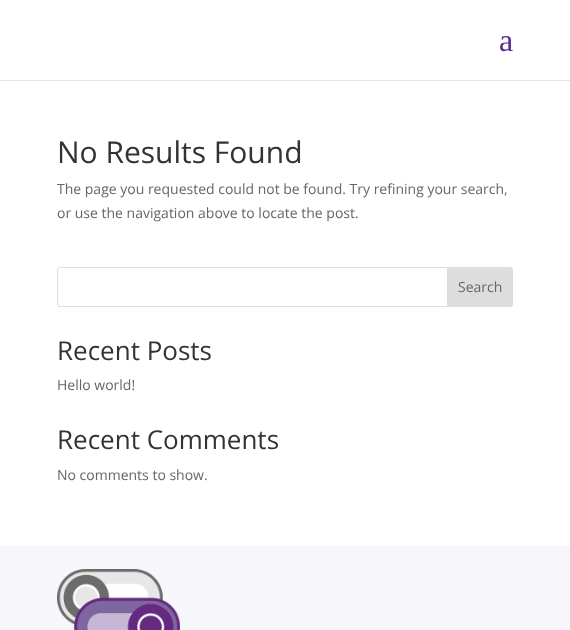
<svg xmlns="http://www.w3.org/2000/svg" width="570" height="630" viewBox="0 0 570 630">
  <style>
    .t1 { font: 32px Liberation Serif; fill: #582c91; }
    .t2 { font: 30px Open Sans; fill: #333; }
    .t3 { font: 14px Open Sans; fill: #666; }
    .t4 { font: 26px Open Sans; fill: #333; }
  </style>
  <rect width="100%" height="100%" fill="#f7f6fa"/>
  <rect x="0" y="80" width="570" height="1" fill="#e6e6e6"/>
  <rect x="0" y="0" width="570" height="80" fill="#fff"/>
  <text x="499" y="51" class="t1">a</text>
  <rect x="0" y="81" width="570" height="465" fill="#fff"/>
  <text x="57" y="163" class="t2">No Results Found</text>
  <text x="57" y="194" class="t3">The page you requested could not be found. Try refining your search,</text>
  <text x="57" y="218" class="t3">or use the navigation above to locate the post.</text>
  <rect x="57.5" y="267.5" width="455" height="39" rx="2.5" fill="none" stroke="#ddd"/>
  <path d="M447.5 267.5H510C511.5 267.5 512.5 268.5 512.5 270V304C512.5 305.5 511.5 306.5 510 306.5H447.5Z" fill="#ddd" stroke="#ddd"/>
  <text x="458" y="292" class="t3">Search</text>
  <text x="57" y="360" class="t4">Recent Posts</text>
  <text x="57" y="390" class="t3">Hello world!</text>
  <text x="57" y="449" class="t4">Recent Comments</text>
  <text x="57" y="480" class="t3">No comments to show.</text>
  <image x="57" y="569" width="123" height="61" href="images/1.png"/>
</svg>
